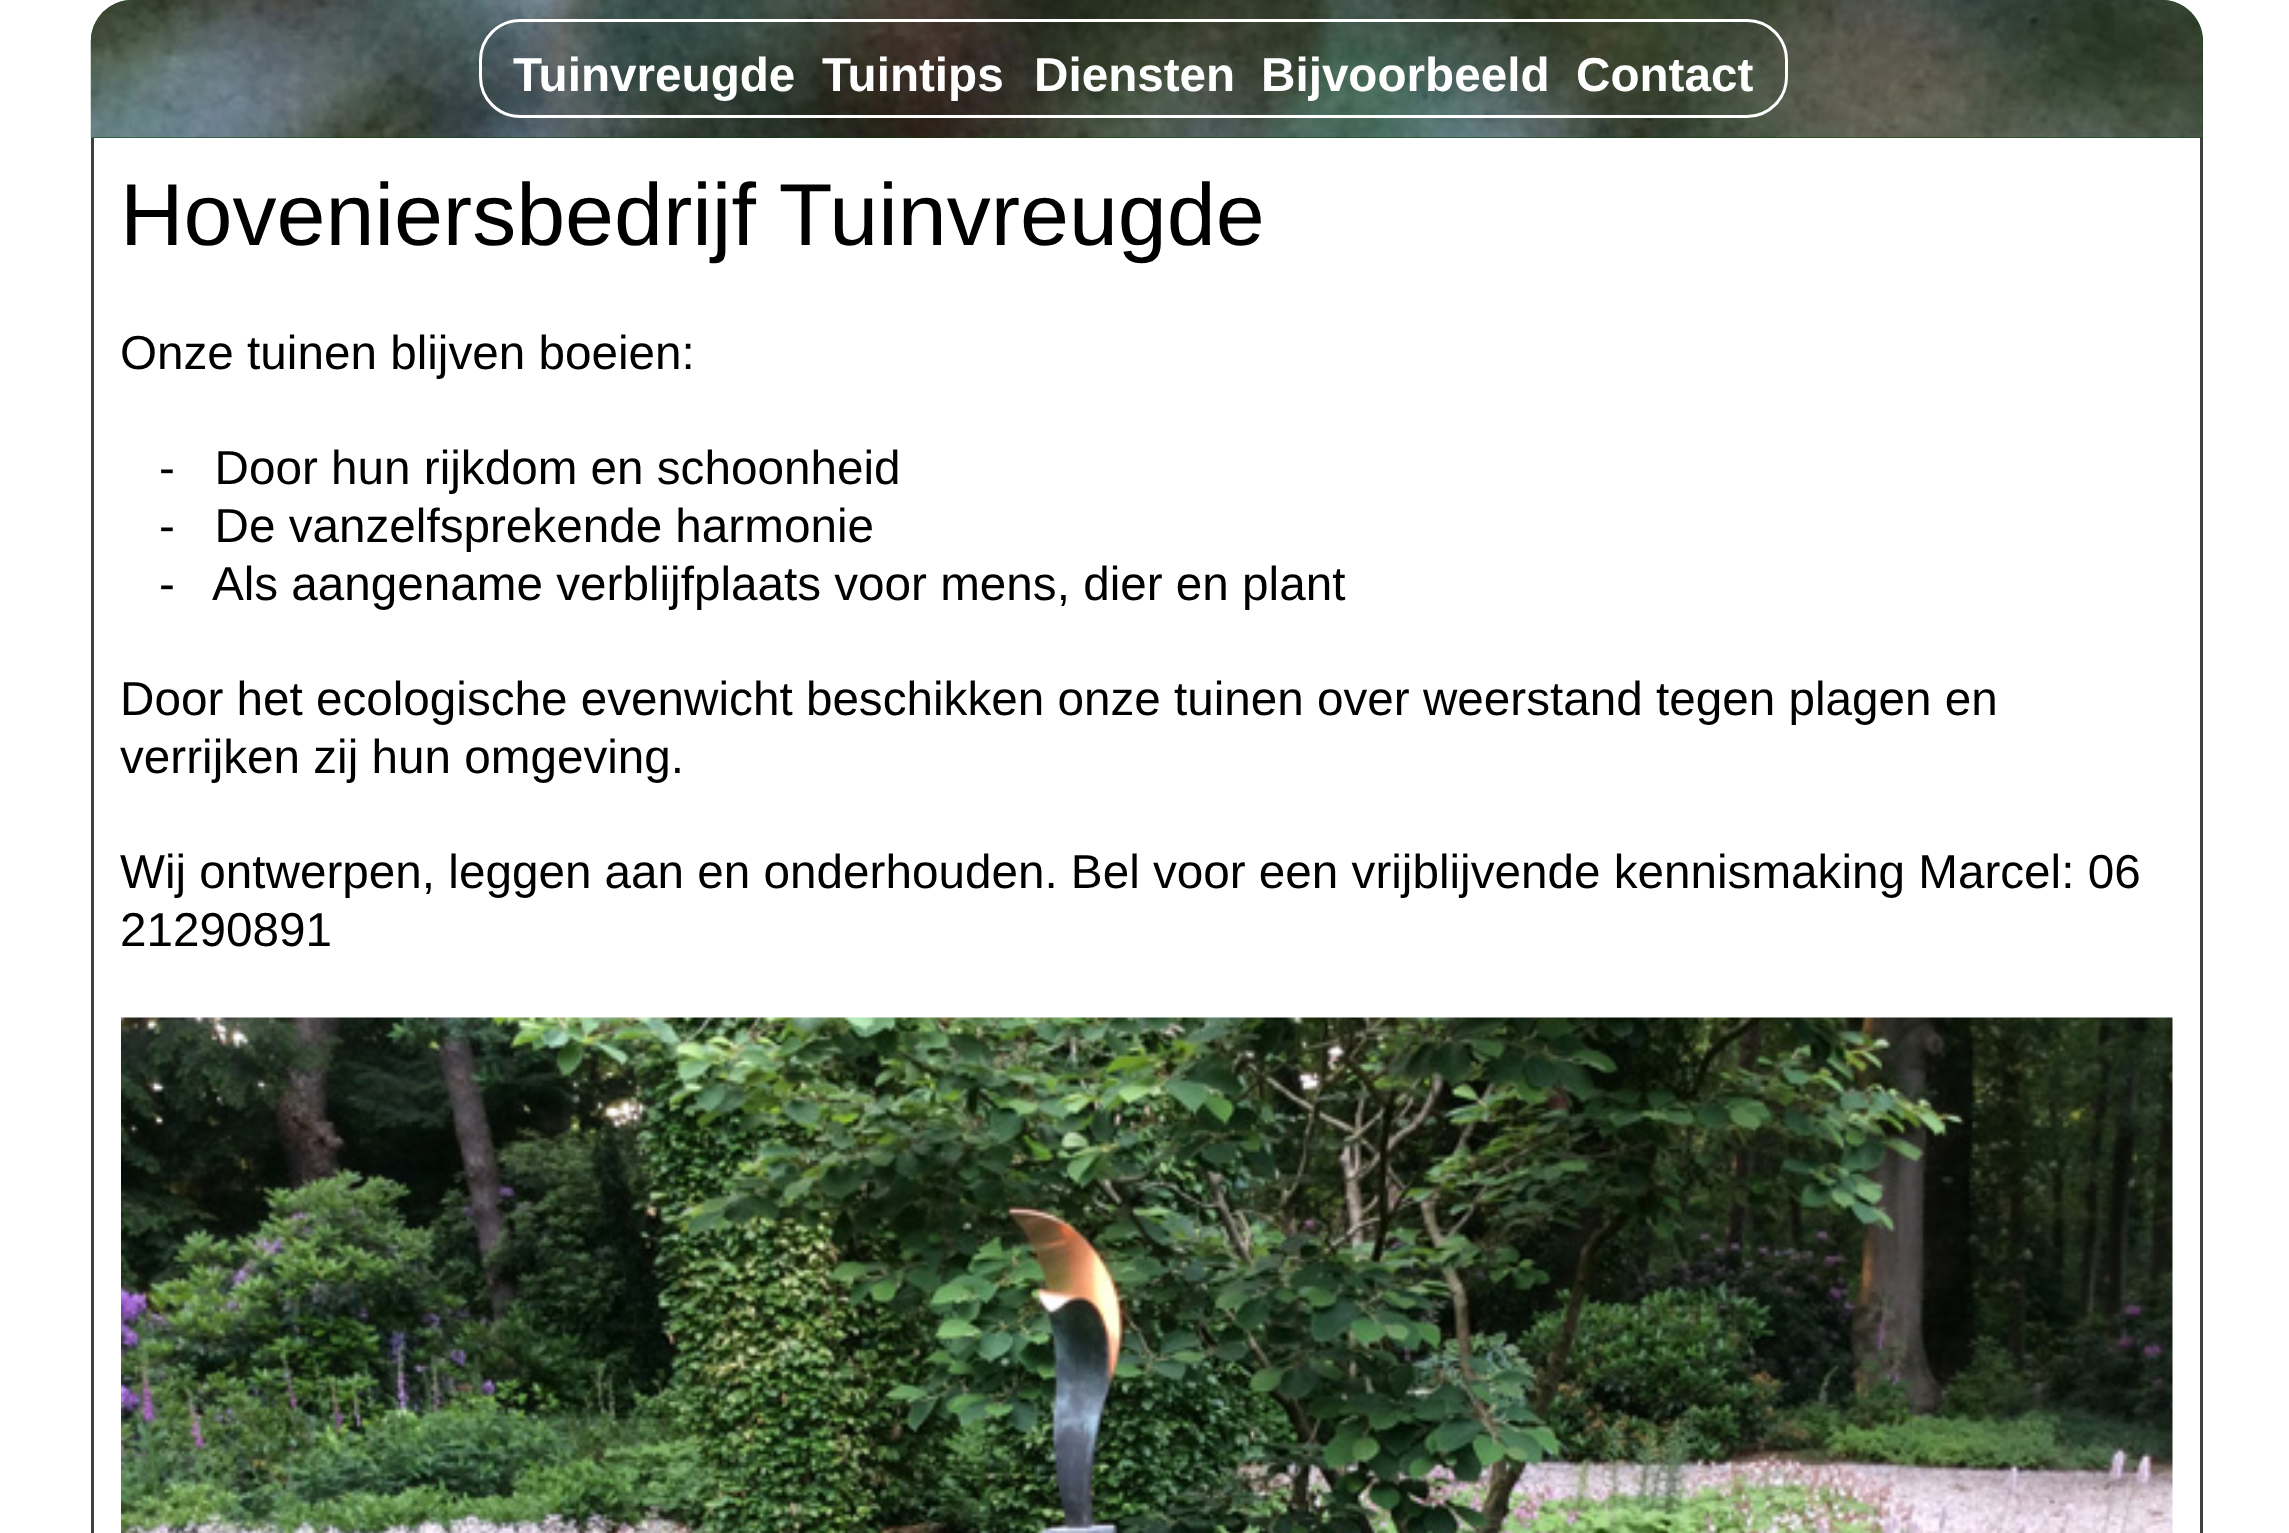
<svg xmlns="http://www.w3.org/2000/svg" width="2289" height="1533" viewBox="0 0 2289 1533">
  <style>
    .t1 { font: bold 47.65px Liberation Sans; fill: #fff; }
    .t2 { font: 88px Liberation Sans; fill: #000; }
    .t3 { font: 47.65px Liberation Sans; fill: #000; }
  </style>
  <rect width="100%" height="100%" fill="#fff"/>
  <path d="M132 0H2162C2184.5 0 2203 18.5 2203 41V138H91V41C91 18.5 109.5 0 132 0Z" fill="#004000"/>
  <image x="90" y="0" width="2113" height="138" href="images/1.png"/>
  <rect x="480.5" y="20.5" width="1306" height="96" rx="39.5" fill="none" stroke="#fff" stroke-width="3"/>
  <text x="513" y="91" class="t1">Tuinvreugde</text>
  <text x="822" y="91" class="t1">Tuintips</text>
  <text x="1034" y="91" class="t1">Diensten</text>
  <text x="1261" y="91" class="t1">Bijvoorbeeld</text>
  <text x="1576" y="91" class="t1">Contact</text>
  <rect x="2200" y="138" width="3" height="1395" fill="#404040"/>
  <rect x="91" y="138" width="3" height="1395" fill="#404040"/>
  <text x="120" y="245" class="t2">Hoveniersbedrijf Tuinvreugde</text>
  <text x="120" y="369" class="t3">Onze tuinen blijven boeien:</text>
  <text x="159" y="484" class="t3" xml:space="preserve">-   Door hun rijkdom en schoonheid</text>
  <text x="159" y="542" class="t3" xml:space="preserve">-   De vanzelfsprekende harmonie</text>
  <text x="159" y="600" class="t3" xml:space="preserve">-   Als aangename verblijfplaats voor mens, dier en plant</text>
  <text x="120" y="715" class="t3">Door het ecologische evenwicht beschikken onze tuinen over weerstand tegen plagen en</text>
  <text x="120" y="773" class="t3">verrijken zij hun omgeving.</text>
  <text x="120" y="888" class="t3">Wij ontwerpen, leggen aan en onderhouden. Bel voor een vrijblijvende kennismaking Marcel: 06</text>
  <text x="120" y="946" class="t3">21290891</text>
  <image x="121" y="1017" width="2052" height="516" href="images/2.png"/>
</svg>
